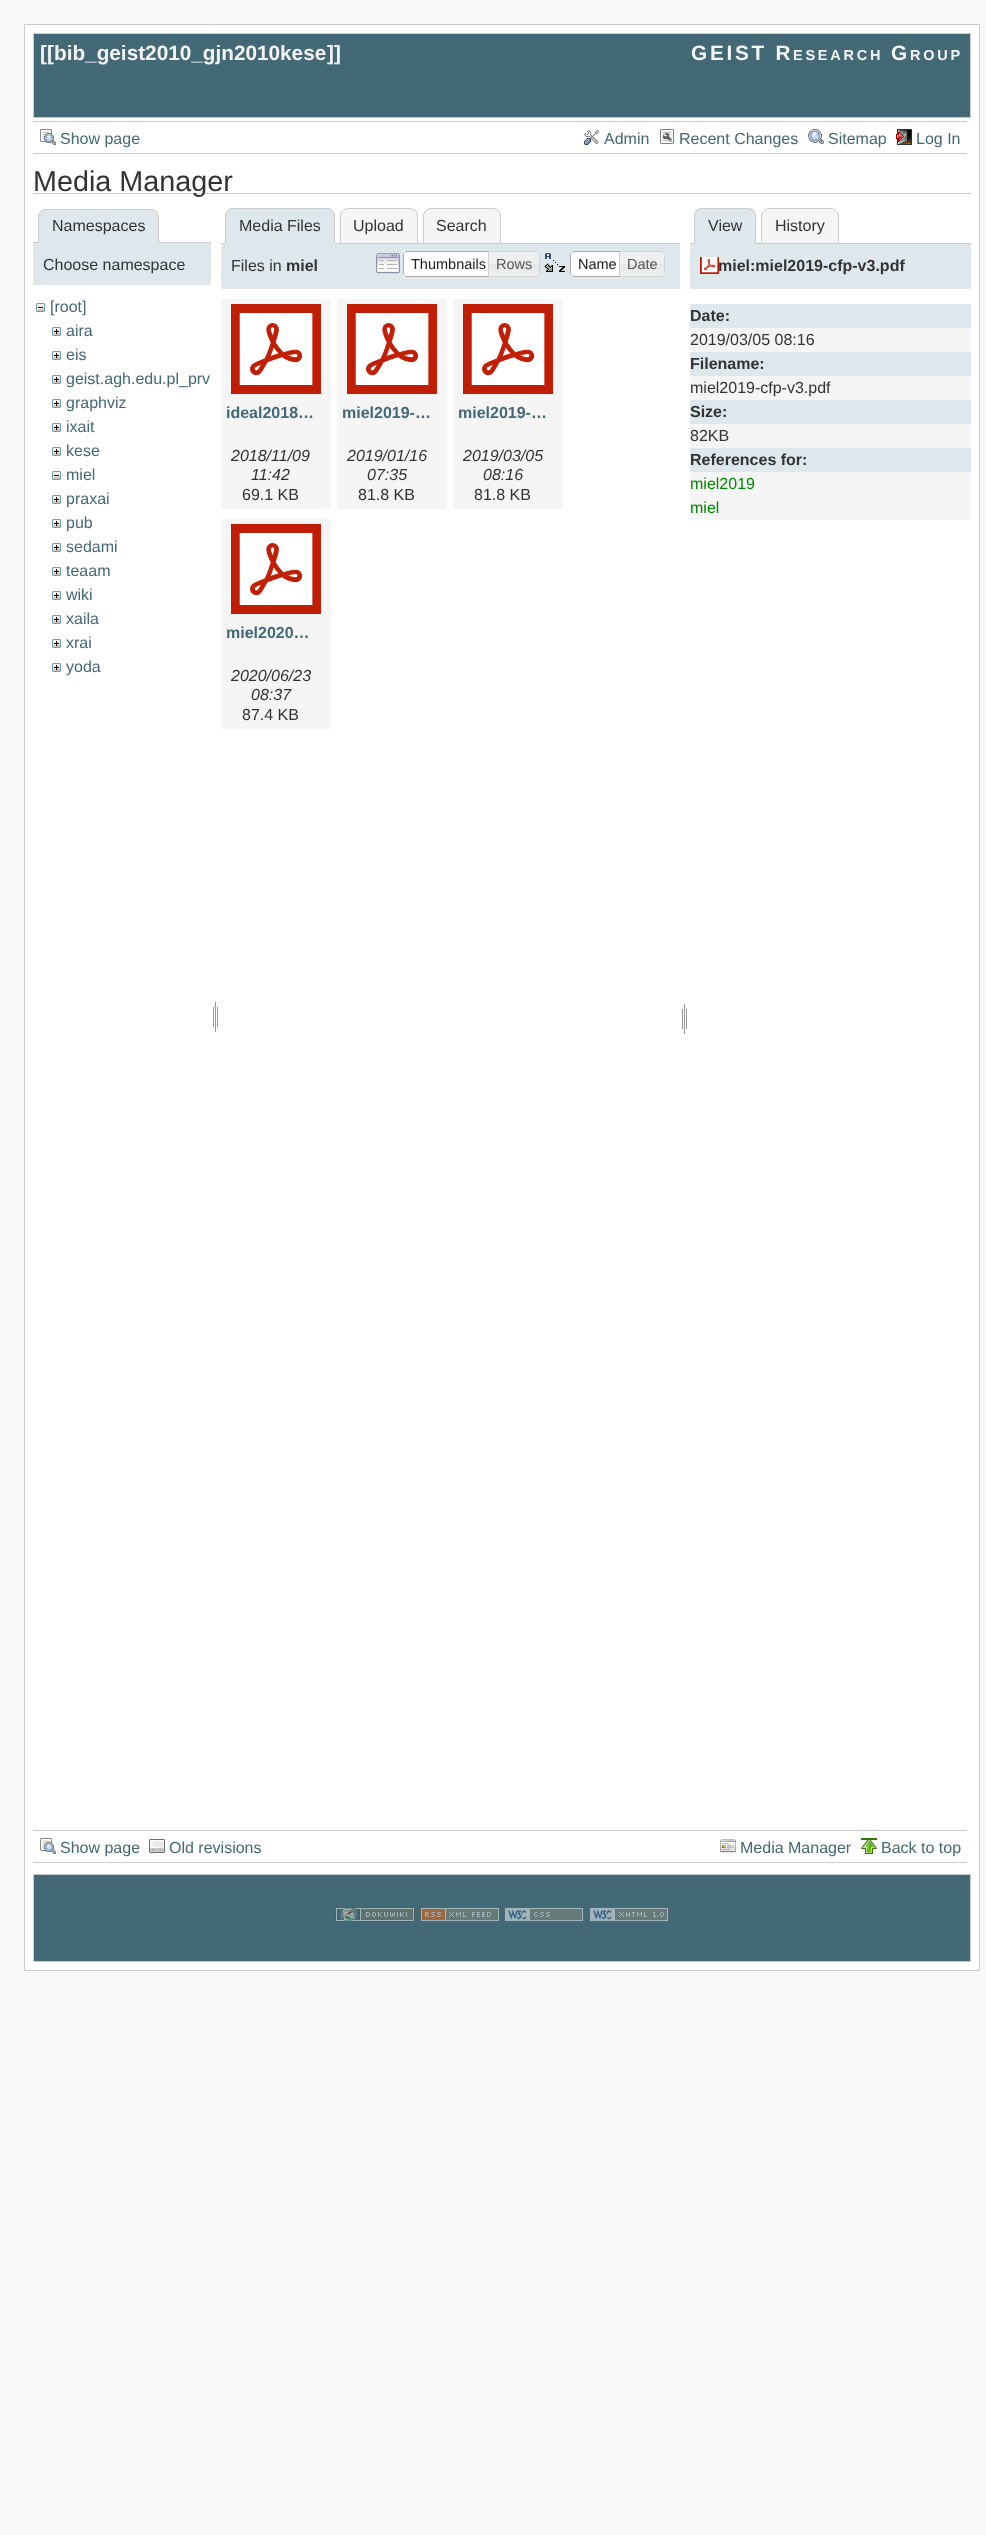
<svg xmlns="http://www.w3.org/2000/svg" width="986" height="2535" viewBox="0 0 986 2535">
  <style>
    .t1 { font: bold 20.75px Liberation Sans; fill: #f5f5f5; }
    .t2 { font: bold 20.75px Liberation Sans; letter-spacing: 2.75px; fill: #f5f5f5; }
    .t3 { font: bold 14.5px Liberation Sans; letter-spacing: 2.75px; fill: #f5f5f5; }
    .t4 { font: 16px Liberation Sans; fill: #436976; }
    .t5 { font: 28.75px Liberation Sans; fill: #333; }
    .t6 { font: 16px Liberation Sans; fill: #333; }
    .t7 { font: bold 16px Liberation Sans; fill: #333; }
    .t8 { font: 14.5px Liberation Sans; fill: #212121; }
    .t9 { font: 14.5px Liberation Sans; fill: #555; }
    .t10 { font: bold 16px Liberation Sans; fill: #436976; }
    .t11 { font: italic 16px Liberation Sans; fill: #333; }
    .t12 { font: 16px Liberation Sans; fill: #080; }
  </style>
  <rect width="100%" height="100%" fill="#f8f8f8"/>
  <rect x="24.5" y="24.5" width="955" height="1946" fill="#fff" stroke="#ccc"/>
  <rect x="33.5" y="33.5" width="937" height="84" fill="#436976" stroke="#ccc"/>
  <text x="40" y="60" class="t1">[[</text>
  <text x="54" y="60" class="t1">bib_geist2010_gjn2010kese</text>
  <text x="327" y="60" class="t1">]]</text>
  <text x="691" y="60" class="t2">GEIST R</text>
  <text x="793" y="60" class="t3">ESEARCH</text>
  <text x="891" y="60" class="t2">G</text>
  <text x="910" y="60" class="t3">ROUP</text>
  <rect x="33" y="121" width="934" height="1" fill="#ccc"/>
  <rect x="33" y="153" width="934" height="1" fill="#ccc"/>
  <image x="40" y="129" width="16" height="16" href="images/1.png"/>
  <text x="60" y="144" class="t4">Show page</text>
  <image x="584" y="130" width="15" height="15" href="images/2.png"/>
  <text x="604" y="144" class="t4">Admin</text>
  <image x="660" y="129" width="14" height="15" href="images/3.png"/>
  <text x="679" y="144" class="t4">Recent Changes</text>
  <image x="808" y="129" width="16" height="15" href="images/4.png"/>
  <text x="828" y="144" class="t4">Sitemap</text>
  <image x="896" y="129" width="16" height="16" href="images/5.png"/>
  <text x="916" y="144" class="t4">Log In</text>
  <rect x="33" y="193" width="938" height="1" fill="#ccc"/>
  <text x="33" y="191" class="t5">Media Manager</text>
  <rect x="33" y="242" width="178" height="1" fill="#ccc"/>
  <path d="M46 209H151C155.5 209 159 212.5 159 217V243H38V217C38 212.5 41.5 209 46 209Z" fill="#dee7ec"/>
  <path d="M46 209C44 209 42 210 40 212H41C42 211 44 210 46 210H151C153 210 155 211 156 212C155 210 153 209 151 209Z" fill="#ccc"/>
  <path d="M159 243V217C159 215 158 213 156.5 211.5L156 212C157 213 158 215 158 217V242Z" fill="#ccc"/>
  <path d="M159 243L158 242H39L38 243Z" fill="#dee7ec"/>
  <path d="M38 243L39 242V217C39 215 40 213 41 212L40.5 211.5C39 213 38 215 38 217Z" fill="#ccc"/>
  <text x="52" y="231" class="t6">Namespaces</text>
  <rect x="33" y="243" width="178" height="42" fill="#dee7ec"/>
  <text x="43" y="270" class="t6">Choose namespace</text>
  <image x="36" y="303" width="9" height="9" href="images/6.png"/>
  <text x="50" y="312" class="t4">[root]</text>
  <image x="52" y="327" width="9" height="9" href="images/7.png"/>
  <text x="66" y="336" class="t4">aira</text>
  <image x="52" y="351" width="9" height="9" href="images/7.png"/>
  <text x="66" y="360" class="t4">eis</text>
  <image x="52" y="375" width="9" height="9" href="images/7.png"/>
  <text x="66" y="384" class="t4">geist.agh.edu.pl_prv</text>
  <image x="52" y="399" width="9" height="9" href="images/7.png"/>
  <text x="66" y="408" class="t4">graphviz</text>
  <image x="52" y="423" width="9" height="9" href="images/7.png"/>
  <text x="66" y="432" class="t4">ixait</text>
  <image x="52" y="447" width="9" height="9" href="images/7.png"/>
  <text x="66" y="456" class="t4">kese</text>
  <image x="52" y="471" width="9" height="9" href="images/6.png"/>
  <text x="66" y="480" class="t4">miel</text>
  <image x="52" y="495" width="9" height="9" href="images/7.png"/>
  <text x="66" y="504" class="t4">praxai</text>
  <image x="52" y="519" width="9" height="9" href="images/7.png"/>
  <text x="66" y="528" class="t4">pub</text>
  <image x="52" y="543" width="9" height="9" href="images/7.png"/>
  <text x="66" y="552" class="t4">sedami</text>
  <image x="52" y="567" width="9" height="9" href="images/7.png"/>
  <text x="66" y="576" class="t4">teaam</text>
  <image x="52" y="591" width="9" height="9" href="images/7.png"/>
  <text x="66" y="600" class="t4">wiki</text>
  <image x="52" y="615" width="9" height="9" href="images/7.png"/>
  <text x="66" y="624" class="t4">xaila</text>
  <image x="52" y="639" width="9" height="9" href="images/7.png"/>
  <text x="66" y="648" class="t4">xrai</text>
  <image x="52" y="663" width="9" height="9" href="images/7.png"/>
  <text x="66" y="672" class="t4">yoda</text>
  <image x="213" y="1001" width="5" height="31" href="images/8.png"/>
  <path d="M348 208.5H410C414 208.5 417.5 212 417.5 216V243.5H340.5V216C340.5 212 344 208.5 348 208.5Z" fill="#f5f5f5" stroke="#ccc"/>
  <path d="M431 208.5H493C497 208.5 500.5 212 500.5 216V243.5H423.5V216C423.5 212 427 208.5 431 208.5Z" fill="#f5f5f5" stroke="#ccc"/>
  <rect x="221" y="243" width="459" height="1" fill="#ccc"/>
  <path d="M233 208H327C331.5 208 335 211.5 335 216V244H225V216C225 211.5 228.5 208 233 208Z" fill="#dee7ec"/>
  <path d="M233 208C231 208 229 209 228 210V211C229 210 231 209 233 209H327C329 209 331 210 332 211V210C331 209 329 208 327 208Z" fill="#ccc"/>
  <path d="M335 244V216C335 214 334 212 332.5 210.5L332 211C333 212 334 214 334 216V243Z" fill="#ccc"/>
  <path d="M335 244L334 243H226L225 244Z" fill="#dee7ec"/>
  <path d="M225 244L226 243V216C226 214 227 212 228 211L227.5 210.5C226 212 225 214 225 216Z" fill="#ccc"/>
  <text x="239" y="231" class="t6">Media Files</text>
  <text x="353" y="231" class="t6">Upload</text>
  <text x="436" y="231" class="t6">Search</text>
  <rect x="221" y="244" width="459" height="45" fill="#dee7ec"/>
  <text x="231" y="271" class="t6">Files in</text>
  <text x="286" y="271" class="t7">miel</text>
  <image x="376" y="253" width="24" height="21" href="images/9.png"/>
  <rect x="403" y="251" width="85" height="26" fill="#fff"/>
  <path d="M407 251.5H493.5V276.5H407C405 276.5 403.5 275 403.5 273V255C403.5 253 405 251.5 407 251.5Z" fill="none" stroke="#aaa"/>
  <text x="411" y="269" class="t8">Thumbnails</text>
  <image x="489" y="251" width="51" height="26" href="images/10.png"/>
  <path d="M488.5 251.5H536C538 251.5 539.5 253 539.5 255V273C539.5 275 538 276.5 536 276.5H488.5Z" fill="none" stroke="#d3d3d3"/>
  <text x="496" y="269" class="t9">Rows</text>
  <image x="544" y="253" width="21" height="19" href="images/11.png"/>
  <rect x="570" y="251" width="49" height="26" fill="#fff"/>
  <path d="M574 251.5H623.5V276.5H574C572 276.5 570.5 275 570.5 273V255C570.5 253 572 251.5 574 251.5Z" fill="none" stroke="#aaa"/>
  <text x="578" y="269" class="t8">Name</text>
  <image x="620" y="251" width="45" height="26" href="images/12.png"/>
  <path d="M619.5 251.5H661C663 251.5 664.5 253 664.5 255V273C664.5 275 663 276.5 661 276.5H619.5Z" fill="none" stroke="#d3d3d3"/>
  <text x="627" y="269" class="t9">Date</text>
  <rect x="221" y="299" width="110" height="210" fill="#f5f5f5"/>
  <image x="231" y="304" width="90" height="90" href="images/13.png"/>
  <text x="226" y="418" class="t10">ideal2018…</text>
  <text x="231" y="461" class="t11">2018/11/09</text>
  <text x="251" y="480" class="t11">11:42</text>
  <text x="242" y="500" class="t6">69.1 KB</text>
  <rect x="337" y="299" width="110" height="210" fill="#f5f5f5"/>
  <image x="347" y="304" width="90" height="90" href="images/13.png"/>
  <text x="342" y="418" class="t10">miel2019-…</text>
  <text x="347" y="461" class="t11">2019/01/16</text>
  <text x="367" y="480" class="t11">07:35</text>
  <text x="358" y="500" class="t6">81.8 KB</text>
  <rect x="453" y="299" width="110" height="210" fill="#f5f5f5"/>
  <image x="463" y="304" width="90" height="90" href="images/13.png"/>
  <text x="458" y="418" class="t10">miel2019-…</text>
  <text x="463" y="461" class="t11">2019/03/05</text>
  <text x="483" y="480" class="t11">08:16</text>
  <text x="474" y="500" class="t6">81.8 KB</text>
  <rect x="221" y="519" width="110" height="210" fill="#f5f5f5"/>
  <image x="231" y="524" width="90" height="90" href="images/13.png"/>
  <text x="226" y="638" class="t10">miel2020…</text>
  <text x="231" y="681" class="t11">2020/06/23</text>
  <text x="251" y="700" class="t11">08:37</text>
  <text x="242" y="720" class="t6">87.4 KB</text>
  <image x="682" y="1003" width="5" height="31" href="images/8.png"/>
  <path d="M769 208.5H831C835 208.5 838.5 212 838.5 216V243.5H761.5V216C761.5 212 765 208.5 769 208.5Z" fill="#f5f5f5" stroke="#ccc"/>
  <rect x="690" y="243" width="281" height="1" fill="#ccc"/>
  <path d="M702 208H748C752.5 208 756 211.5 756 216V244H694V216C694 211.5 697.5 208 702 208Z" fill="#dee7ec"/>
  <path d="M702 208C700 208 698 209 696 210L697 211C698 210 700 209 702 209H748C750 209 752 210 753 211L754 210C752 209 750 208 748 208Z" fill="#ccc"/>
  <path d="M756 244V216C756 214 755 212 753.5 210.5L753 211C754 212 755 214 755 216V243Z" fill="#ccc"/>
  <path d="M756 244L755 243H695L694 244Z" fill="#dee7ec"/>
  <path d="M694 244L695 243V216C695 214 696 212 697 211L696.5 210.5C695 212 694 214 694 216Z" fill="#ccc"/>
  <text x="708" y="231" class="t6">View</text>
  <text x="775" y="231" class="t6">History</text>
  <rect x="690" y="244" width="281" height="45" fill="#dee7ec"/>
  <image x="700" y="257" width="19" height="17" href="images/14.png"/>
  <text x="718" y="271" class="t7">miel:miel2019-cfp-v3.pdf</text>
  <rect x="690" y="304" width="281" height="24" fill="#dee7ec"/>
  <text x="690" y="321" class="t7">Date:</text>
  <rect x="690" y="328" width="281" height="24" fill="#f5f5f5"/>
  <text x="690" y="345" class="t6">2019/03/05 08:16</text>
  <rect x="690" y="352" width="281" height="24" fill="#dee7ec"/>
  <text x="690" y="369" class="t7">Filename:</text>
  <rect x="690" y="376" width="281" height="24" fill="#f5f5f5"/>
  <text x="690" y="393" class="t6">miel2019-cfp-v3.pdf</text>
  <rect x="690" y="400" width="281" height="24" fill="#dee7ec"/>
  <text x="690" y="417" class="t7">Size:</text>
  <rect x="690" y="424" width="281" height="24" fill="#f5f5f5"/>
  <text x="690" y="441" class="t6">82KB</text>
  <rect x="690" y="448" width="281" height="24" fill="#dee7ec"/>
  <text x="690" y="465" class="t7">References for:</text>
  <rect x="690" y="472" width="281" height="48" fill="#f5f5f5"/>
  <text x="690" y="489" class="t12">miel2019</text>
  <text x="690" y="513" class="t12">miel</text>
  <rect x="33" y="1830" width="934" height="1" fill="#ccc"/>
  <rect x="33" y="1862" width="934" height="1" fill="#ccc"/>
  <image x="40" y="1838" width="16" height="16" href="images/1.png"/>
  <text x="60" y="1853" class="t4">Show page</text>
  <image x="149" y="1839" width="16" height="14" href="images/15.png"/>
  <text x="169" y="1853" class="t4">Old revisions</text>
  <image x="720" y="1839" width="16" height="14" href="images/16.png"/>
  <text x="740" y="1853" class="t4">Media Manager</text>
  <image x="861" y="1838" width="16" height="16" href="images/17.png"/>
  <text x="881" y="1853" class="t4">Back to top</text>
  <rect x="33.5" y="1874.5" width="937" height="87" fill="#436976" stroke="#ccc"/>
  <image x="335" y="1907" width="80" height="15" href="images/18.png"/>
  <image x="420" y="1907" width="80" height="15" href="images/19.png"/>
  <image x="504" y="1907" width="80" height="15" href="images/20.png"/>
  <image x="589" y="1907" width="80" height="15" href="images/21.png"/>
</svg>
